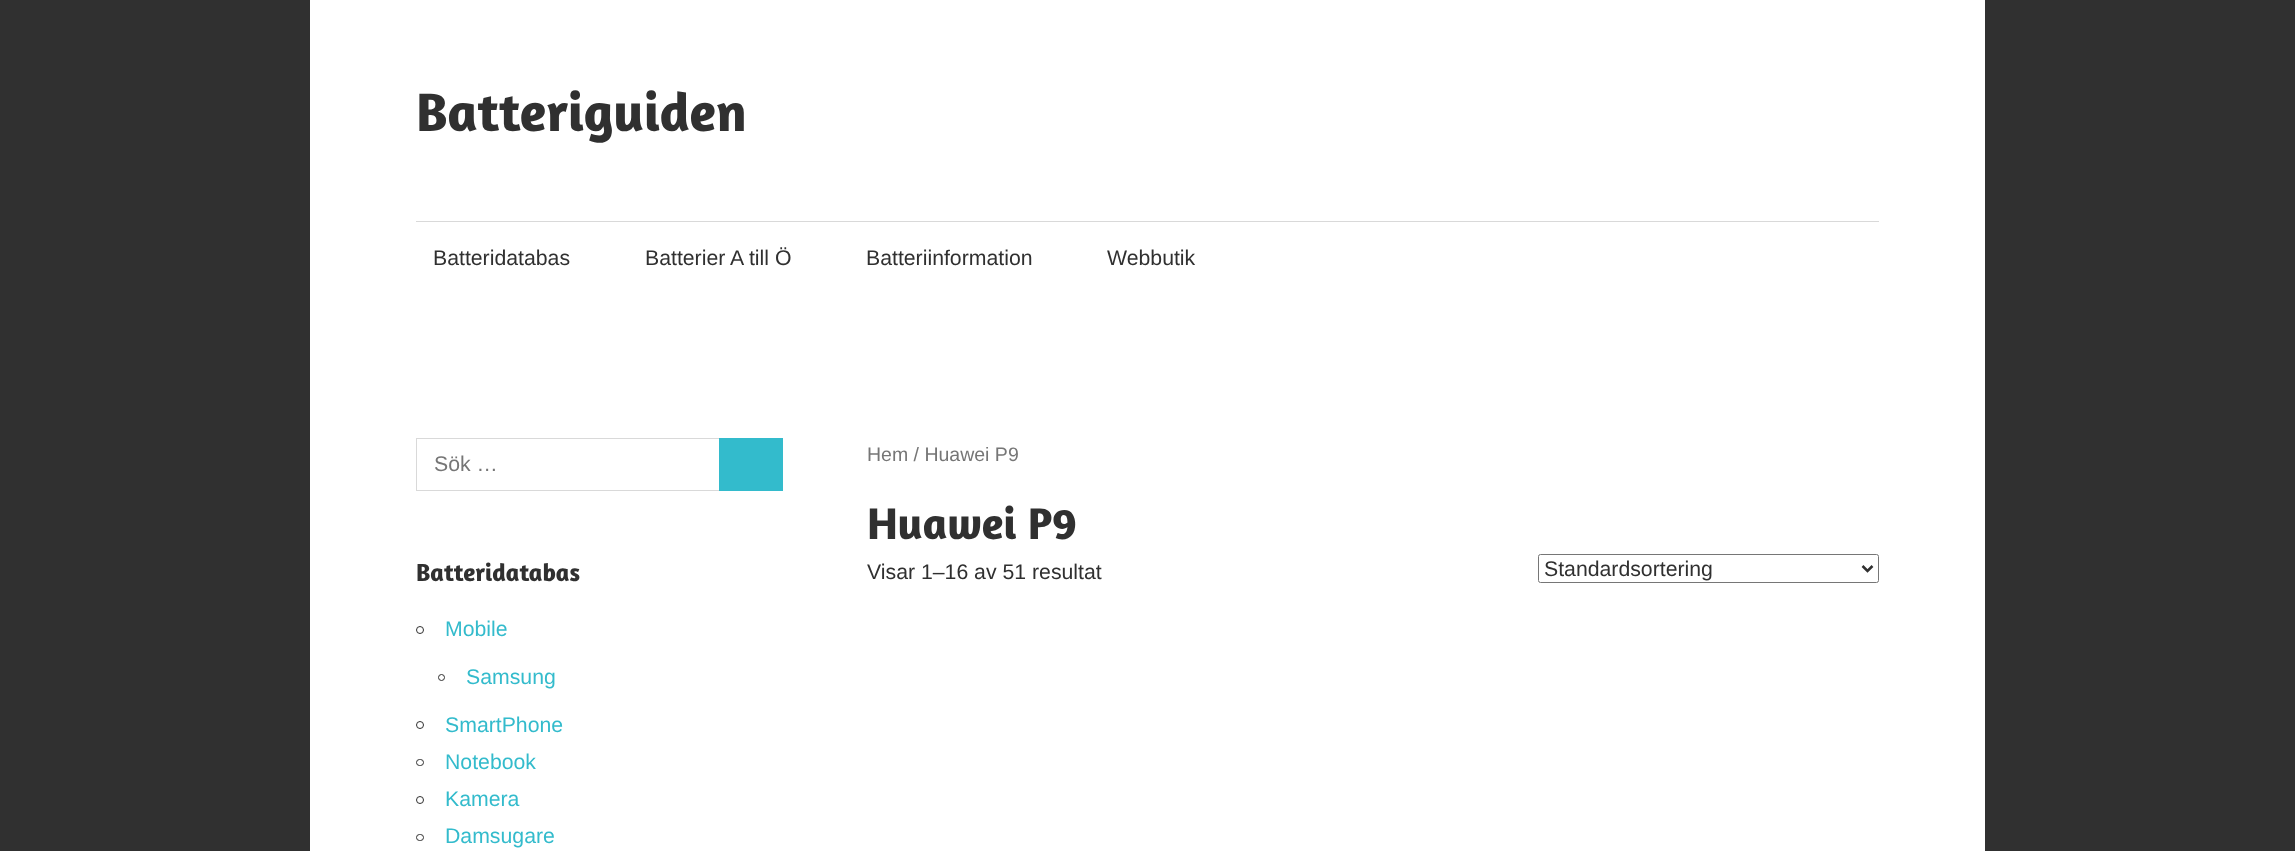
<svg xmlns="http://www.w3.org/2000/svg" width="2295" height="851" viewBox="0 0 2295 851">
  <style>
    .t1 { font: bold 55px Amaranth; fill: #303030; }
    .t2 { font: 21.25px Liberation Sans; fill: #303030; }
    .t3 { font: 21.25px Liberation Sans; fill: #767676; }
    .t4 { font: bold 25px Amaranth; fill: #303030; }
    .t5 { font: 21.25px Liberation Sans; fill: #3bc; }
    .t6 { font: 19.5px Liberation Sans; fill: #767676; }
    .t7 { font: bold 45px Amaranth; fill: #303030; }
  </style>
  <rect width="100%" height="100%" fill="#303030"/>
  <rect x="310" y="0" width="1675" height="851" fill="#fff"/>
  <text x="416" y="131" class="t1">Batteriguiden</text>
  <rect x="416" y="221" width="1463" height="1" fill="#d9d9d9"/>
  <text x="433" y="265" class="t2">Batteridatabas</text>
  <text x="645" y="265" class="t2">Batterier A till Ö</text>
  <text x="866" y="265" class="t2">Batteriinformation</text>
  <text x="1107" y="265" class="t2">Webbutik</text>
  <rect x="416.5" y="438.5" width="303" height="52" fill="none" stroke="#d9d9d9"/>
  <text x="434" y="471" class="t3">Sök …</text>
  <rect x="719" y="438" width="64" height="53" fill="#3bc"/>
  <text x="416" y="581" class="t4">Batteridatabas</text>
  <circle cx="420" cy="630" r="3.5" fill="none" stroke="#303030"/>
  <text x="445" y="636" class="t5">Mobile</text>
  <circle cx="441.5" cy="677.5" r="3" fill="none" stroke="#303030"/>
  <text x="466" y="684" class="t5">Samsung</text>
  <circle cx="420" cy="725" r="3.5" fill="none" stroke="#303030"/>
  <text x="445" y="732" class="t5">SmartPhone</text>
  <rect x="416.5" y="759.5" width="7" height="6" rx="3" fill="none" stroke="#303030"/>
  <text x="445" y="769" class="t5">Notebook</text>
  <circle cx="420" cy="800" r="3.5" fill="none" stroke="#303030"/>
  <text x="445" y="806" class="t5">Kamera</text>
  <rect x="416.5" y="834.5" width="7" height="6" rx="3" fill="none" stroke="#303030"/>
  <text x="445" y="843" class="t5">Damsugare</text>
  <text x="867" y="461" class="t6">Hem / Huawei P9</text>
  <text x="867" y="539" class="t7">Huawei P9</text>
  <text x="867" y="579" class="t2">Visar 1–16 av 51 resultat</text>
  <rect x="1538.5" y="554.5" width="340" height="28" rx="2" fill="none" stroke="#767676"/>
  <path d="M1862.5 566L1867.5 571L1872.5 566" fill="none" stroke="#303030" stroke-width="2.5"/>
  <text x="1544" y="576" class="t2">Standardsortering</text>
</svg>
